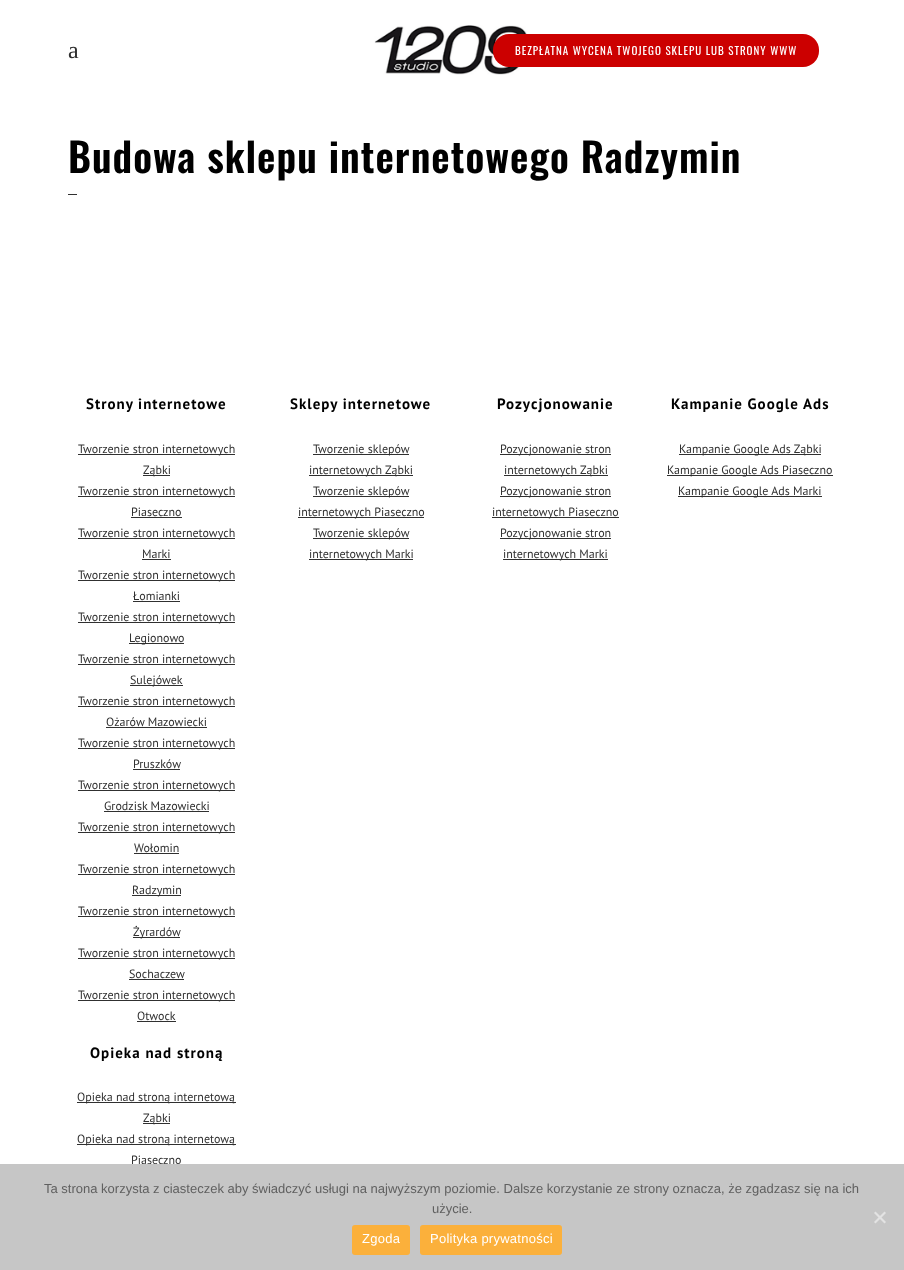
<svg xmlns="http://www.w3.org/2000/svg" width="904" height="1270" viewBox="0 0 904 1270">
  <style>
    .t1 { font: 24px Liberation Serif; fill: #303030; }
    .t2 { font: 11px Oswald; letter-spacing: 1px; fill: #fff; }
    .t3 { font: 600 40px Oswald; letter-spacing: 1px; fill: #000; }
    .t4 { font: bold 15px PT Sans; letter-spacing: 1px; fill: #000; }
    .t5 { font: 12px PT Sans; fill: #303030; }
    .t6 { font: 13px Liberation Sans; fill: #606060; }
    .t7 { font: 13px Liberation Sans; letter-spacing: 0.25px; fill: #fff; }
  </style>
  <rect width="100%" height="100%" fill="#fff"/>
  <text x="68" y="58" class="t1">a</text>
  <image x="374" y="25" width="154" height="50" href="images/1.png"/>
  <rect x="493" y="34" width="326" height="33" rx="16" fill="#c00"/>
  <text x="515" y="55" class="t2">BEZPŁATNA WYCENA TWOJEGO SKLEPU LUB STRONY WWW</text>
  <text x="68" y="173" class="t3">Budowa sklepu internetowego Radzymin</text>
  <rect x="68" y="194" width="9" height="1" fill="#303030"/>
  <text x="86" y="409" class="t4">Strony internetowe</text>
  <rect x="78" y="454" width="157" height="1" fill="#303030"/>
  <text x="78" y="453" class="t5">Tworzenie stron internetowych</text>
  <rect x="143" y="475" width="27" height="1" fill="#303030"/>
  <text x="143" y="474" class="t5">Ząbki</text>
  <rect x="78" y="496" width="157" height="1" fill="#303030"/>
  <text x="78" y="495" class="t5">Tworzenie stron internetowych</text>
  <text x="131" y="516" class="t5">Piaseczno</text>
  <rect x="131" y="517" width="51" height="1" fill="#303030"/>
  <rect x="78" y="538" width="157" height="1" fill="#303030"/>
  <text x="78" y="537" class="t5">Tworzenie stron internetowych</text>
  <text x="142" y="558" class="t5">Marki</text>
  <rect x="142" y="559" width="29" height="1" fill="#303030"/>
  <rect x="78" y="580" width="157" height="1" fill="#303030"/>
  <text x="78" y="579" class="t5">Tworzenie stron internetowych</text>
  <text x="133" y="600" class="t5">Łomianki</text>
  <rect x="133" y="601" width="47" height="1" fill="#303030"/>
  <rect x="78" y="622" width="157" height="1" fill="#303030"/>
  <text x="78" y="621" class="t5">Tworzenie stron internetowych</text>
  <rect x="129" y="643" width="55" height="1" fill="#303030"/>
  <text x="129" y="642" class="t5">Legionowo</text>
  <rect x="78" y="664" width="157" height="1" fill="#303030"/>
  <text x="78" y="663" class="t5">Tworzenie stron internetowych</text>
  <rect x="130" y="685" width="53" height="1" fill="#303030"/>
  <text x="130" y="684" class="t5">Sulejówek</text>
  <rect x="78" y="706" width="157" height="1" fill="#303030"/>
  <text x="78" y="705" class="t5">Tworzenie stron internetowych</text>
  <text x="106" y="726" class="t5">Ożarów Mazowiecki</text>
  <rect x="106" y="727" width="101" height="1" fill="#303030"/>
  <rect x="78" y="748" width="157" height="1" fill="#303030"/>
  <text x="78" y="747" class="t5">Tworzenie stron internetowych</text>
  <text x="133" y="768" class="t5">Pruszków</text>
  <rect x="133" y="769" width="47" height="1" fill="#303030"/>
  <rect x="78" y="790" width="157" height="1" fill="#303030"/>
  <text x="78" y="789" class="t5">Tworzenie stron internetowych</text>
  <text x="104" y="810" class="t5">Grodzisk Mazowiecki</text>
  <rect x="104" y="811" width="105" height="1" fill="#303030"/>
  <rect x="78" y="832" width="157" height="1" fill="#303030"/>
  <text x="78" y="831" class="t5">Tworzenie stron internetowych</text>
  <text x="134" y="852" class="t5">Wołomin</text>
  <rect x="134" y="853" width="45" height="1" fill="#303030"/>
  <rect x="78" y="874" width="157" height="1" fill="#303030"/>
  <text x="78" y="873" class="t5">Tworzenie stron internetowych</text>
  <rect x="132" y="895" width="49" height="1" fill="#303030"/>
  <text x="132" y="894" class="t5">Radzymin</text>
  <rect x="78" y="916" width="157" height="1" fill="#303030"/>
  <text x="78" y="915" class="t5">Tworzenie stron internetowych</text>
  <rect x="133" y="937" width="47" height="1" fill="#303030"/>
  <text x="133" y="936" class="t5">Żyrardów</text>
  <rect x="78" y="958" width="157" height="1" fill="#303030"/>
  <text x="78" y="957" class="t5">Tworzenie stron internetowych</text>
  <text x="129" y="978" class="t5">Sochaczew</text>
  <rect x="129" y="979" width="55" height="1" fill="#303030"/>
  <rect x="78" y="1000" width="157" height="1" fill="#303030"/>
  <text x="78" y="999" class="t5">Tworzenie stron internetowych</text>
  <text x="137" y="1020" class="t5">Otwock</text>
  <rect x="137" y="1021" width="39" height="1" fill="#303030"/>
  <text x="90" y="1058" class="t4">Opieka nad stroną</text>
  <rect x="77" y="1102" width="159" height="1" fill="#303030"/>
  <text x="77" y="1101" class="t5">Opieka nad stroną internetową</text>
  <rect x="143" y="1123" width="27" height="1" fill="#303030"/>
  <text x="143" y="1122" class="t5">Ząbki</text>
  <rect x="77" y="1144" width="159" height="1" fill="#303030"/>
  <text x="77" y="1143" class="t5">Opieka nad stroną internetową</text>
  <text x="131" y="1164" class="t5">Piaseczno</text>
  <text x="290" y="409" class="t4">Sklepy internetowe</text>
  <rect x="313" y="454" width="96" height="1" fill="#303030"/>
  <text x="313" y="453" class="t5">Tworzenie sklepów</text>
  <rect x="309" y="475" width="104" height="1" fill="#303030"/>
  <text x="309" y="474" class="t5">internetowych Ząbki</text>
  <rect x="313" y="496" width="96" height="1" fill="#303030"/>
  <text x="313" y="495" class="t5">Tworzenie sklepów</text>
  <rect x="298" y="517" width="126" height="1" fill="#303030"/>
  <text x="298" y="516" class="t5">internetowych Piaseczno</text>
  <rect x="313" y="538" width="96" height="1" fill="#303030"/>
  <text x="313" y="537" class="t5">Tworzenie sklepów</text>
  <rect x="309" y="559" width="104" height="1" fill="#303030"/>
  <text x="309" y="558" class="t5">internetowych Marki</text>
  <text x="497" y="409" class="t4">Pozycjonowanie</text>
  <rect x="500" y="454" width="111" height="1" fill="#303030"/>
  <text x="500" y="453" class="t5">Pozycjonowanie stron</text>
  <rect x="504" y="475" width="104" height="1" fill="#303030"/>
  <text x="504" y="474" class="t5">internetowych Ząbki</text>
  <rect x="500" y="496" width="111" height="1" fill="#303030"/>
  <text x="500" y="495" class="t5">Pozycjonowanie stron</text>
  <rect x="492" y="517" width="127" height="1" fill="#303030"/>
  <text x="492" y="516" class="t5">internetowych Piaseczno</text>
  <rect x="500" y="538" width="111" height="1" fill="#303030"/>
  <text x="500" y="537" class="t5">Pozycjonowanie stron</text>
  <rect x="503" y="559" width="105" height="1" fill="#303030"/>
  <text x="503" y="558" class="t5">internetowych Marki</text>
  <text x="671" y="409" class="t4">Kampanie Google Ads</text>
  <rect x="679" y="454" width="142" height="1" fill="#303030"/>
  <text x="679" y="453" class="t5">Kampanie Google Ads Ząbki</text>
  <rect x="667" y="475" width="166" height="1" fill="#303030"/>
  <text x="667" y="474" class="t5">Kampanie Google Ads Piaseczno</text>
  <rect x="678" y="496" width="144" height="1" fill="#303030"/>
  <text x="678" y="495" class="t5">Kampanie Google Ads Marki</text>
  <rect x="0" y="1164" width="904" height="106" fill="#c6c6c6"/>
  <text x="44" y="1193" class="t6">Ta strona korzysta z ciasteczek aby świadczyć usługi na najwyższym poziomie. Dalsze korzystanie ze strony oznacza, że zgadzasz się na ich</text>
  <text x="432" y="1213" class="t6">użycie.</text>
  <path d="M884.5 1211.5L886 1213L875.5 1223.5L874 1222Z" fill="#e3e3e3"/>
  <path d="M874 1213L875.5 1211.5L886 1222L884.5 1223.5Z" fill="#e3e3e3"/>
  <rect x="352" y="1225" width="58" height="30" rx="3" fill="#fbb03b"/>
  <text x="362" y="1243" class="t7">Zgoda</text>
  <rect x="420" y="1225" width="142" height="30" rx="3" fill="#fbb03b"/>
  <text x="430" y="1243" class="t7">Polityka prywatności</text>
</svg>
